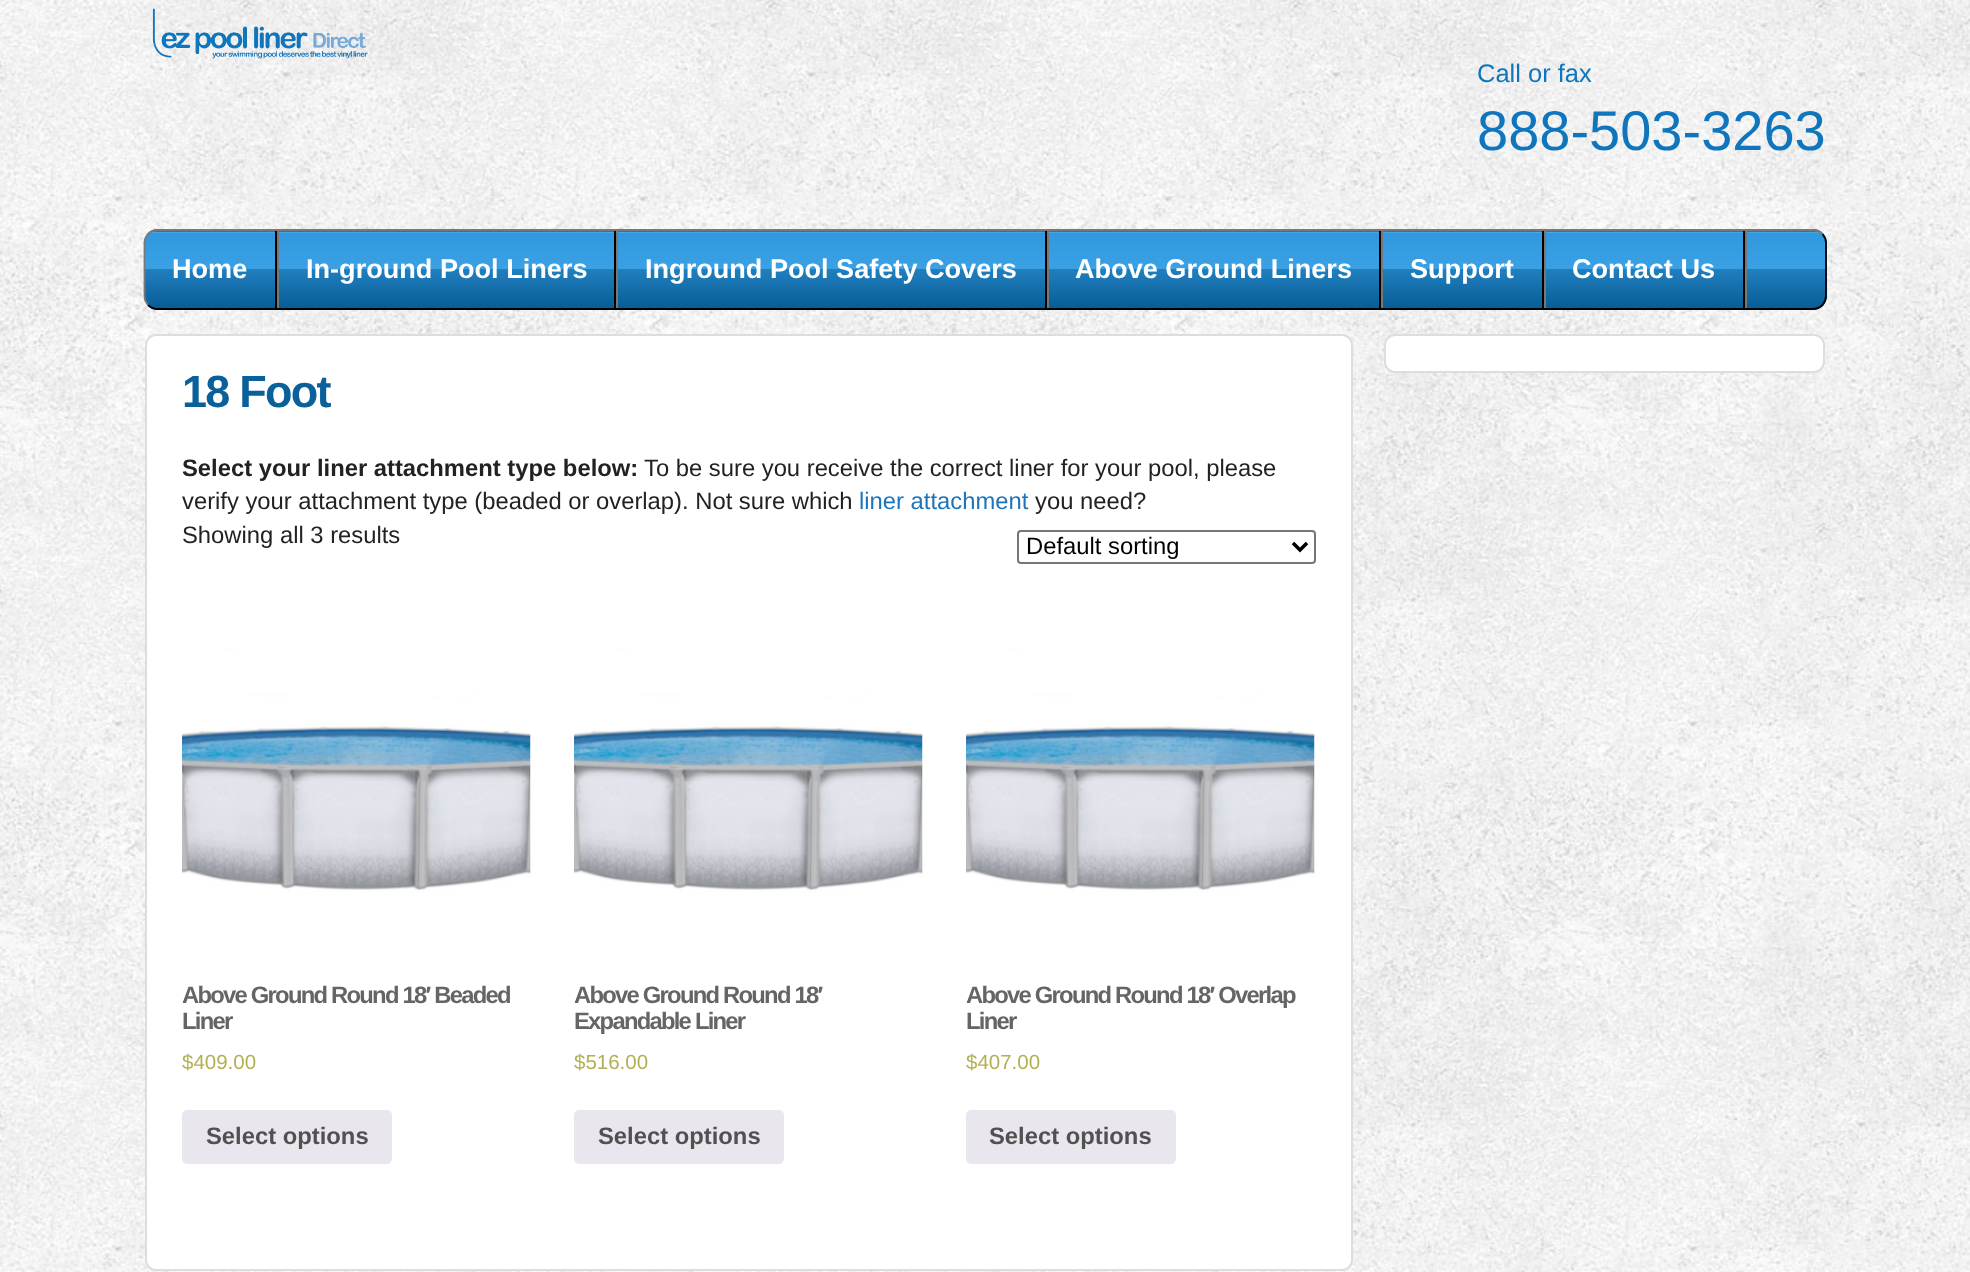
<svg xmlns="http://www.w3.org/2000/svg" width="1970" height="1272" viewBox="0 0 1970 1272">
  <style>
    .t1 { font: 25.5px Liberation Sans; fill: #0f75bc; }
    .t2 { font: 56px Liberation Sans; fill: #0f75bc; }
    .t3 { font: bold 27.1px Liberation Sans; fill: #fff; }
    .t4 { font: bold 45px Liberation Sans; letter-spacing: -1.75px; fill: #0a609b; }
    .t5 { font: bold 23.8px Liberation Sans; fill: #222; }
    .t6 { font: 23.8px Liberation Sans; fill: #222; }
    .t7 { font: 23.8px Liberation Sans; fill: #1c75bc; }
    .t8 { font: 23.8px Liberation Sans; fill: #000; }
    .t9 { font: bold 23.8px Liberation Sans; letter-spacing: -1.75px; fill: #656565; }
    .t10 { font: 20.5px Liberation Sans; fill: #b3af54; }
    .t11 { font: bold 23.8px Liberation Sans; fill: #515151; }
  </style>
  <defs>
    <clipPath id="clip1"><rect x="144" y="229" width="1683" height="81" rx="14"/></clipPath>
    <linearGradient id="g1" gradientUnits="userSpaceOnUse" x1="985" y1="154" x2="985" y2="231"><stop offset="0" stop-color="#0965a2"/><stop offset="0.02" stop-color="#48a7e6"/><stop offset="0.02" stop-color="#2f98de"/><stop offset="0.5" stop-color="#3ba1e5"/><stop offset="0.5" stop-color="#217fbe"/><stop offset="1" stop-color="#075d97"/></linearGradient>
    <linearGradient id="g2" gradientUnits="userSpaceOnUse" x1="985" y1="231" x2="985" y2="308"><stop offset="0" stop-color="#0965a2"/><stop offset="0.02" stop-color="#48a7e6"/><stop offset="0.02" stop-color="#2f98de"/><stop offset="0.5" stop-color="#3ba1e5"/><stop offset="0.5" stop-color="#217fbe"/><stop offset="1" stop-color="#075d97"/></linearGradient>
    <linearGradient id="g3" gradientUnits="userSpaceOnUse" x1="985" y1="308" x2="985" y2="385"><stop offset="0" stop-color="#0965a2"/><stop offset="0.02" stop-color="#48a7e6"/><stop offset="0.02" stop-color="#2f98de"/><stop offset="0.5" stop-color="#3ba1e5"/><stop offset="0.5" stop-color="#217fbe"/><stop offset="1" stop-color="#075d97"/></linearGradient>
  </defs>
  <rect width="100%" height="100%" fill="#fff"/>
  <image x="0" y="0" width="1970" height="1272" href="images/1.png"/>
  <image x="152" y="8" width="216" height="51" href="images/2.png"/>
  <text x="1477" y="82" class="t1">Call or fax</text>
  <text x="1477" y="150" class="t2">888-503-3263</text>
  <g clip-path="url(#clip1)">
    <rect x="144" y="229" width="1683" height="2" fill="url(#g1)"/>
    <rect x="144" y="231" width="1683" height="77" fill="url(#g2)"/>
    <rect x="144" y="308" width="1683" height="2" fill="url(#g3)"/>
  </g>
  <path d="M1822.5 234C1824.5 236.5 1826 240 1826 243V296C1826 299 1824.5 302.5 1822.5 305C1820 307.5 1816.5 309 1813 309H157.5C154 309 150.5 307.5 148 305" fill="none" stroke="#000" stroke-width="1.8"/>
  <path d="M148 305C146 302.5 144.5 299 144.5 296V243C144.5 240 146 236.5 148 234C150.5 231.5 154 230 157.5 230H1813C1816.5 230 1820 231.5 1822.5 234" fill="none" stroke="#787878" stroke-width="1.8"/>
  <rect x="277" y="231" width="2" height="77" fill="#777"/>
  <rect x="275" y="231" width="2" height="77" fill="#000"/>
  <text x="172" y="278" class="t3">Home</text>
  <rect x="616" y="231" width="2" height="77" fill="#777"/>
  <rect x="614" y="231" width="2" height="77" fill="#000"/>
  <text x="306" y="278" class="t3">In-ground Pool Liners</text>
  <rect x="1047" y="231" width="2" height="77" fill="#777"/>
  <rect x="1045" y="231" width="2" height="77" fill="#000"/>
  <text x="645" y="278" class="t3">Inground Pool Safety Covers</text>
  <rect x="1381" y="231" width="2" height="77" fill="#777"/>
  <rect x="1379" y="231" width="2" height="77" fill="#000"/>
  <text x="1075" y="278" class="t3">Above Ground Liners</text>
  <rect x="1544" y="231" width="2" height="77" fill="#777"/>
  <rect x="1542" y="231" width="2" height="77" fill="#000"/>
  <text x="1410" y="278" class="t3">Support</text>
  <rect x="1745" y="231" width="2" height="77" fill="#777"/>
  <rect x="1743" y="231" width="2" height="77" fill="#000"/>
  <text x="1572" y="278" class="t3">Contact Us</text>
  <rect x="1385" y="335" width="439" height="37" rx="10" fill="#fff" stroke="#ddd" stroke-width="2"/>
  <rect x="146" y="335" width="1206" height="935" rx="10" fill="#fff" stroke="#ddd" stroke-width="2"/>
  <text x="182" y="407" class="t4">18 Foot</text>
  <text x="182" y="476" class="t5">Select your liner attachment type below:</text>
  <text x="644" y="476" class="t6">To be sure you receive the correct liner for your pool, please</text>
  <text x="182" y="509" class="t6">verify your attachment type (beaded or overlap). Not sure which</text>
  <text x="859" y="509" class="t7">liner attachment</text>
  <text x="1035" y="509" class="t6">you need?</text>
  <text x="182" y="543" class="t6">Showing all 3 results</text>
  <rect x="1018" y="531" width="297" height="32" rx="3" fill="none" stroke="#767676" stroke-width="2"/>
  <path d="M1293 543L1300 550L1307 543" fill="none" stroke="#000" stroke-width="3.5"/>
  <text x="1026" y="554" class="t8">Default sorting</text>
  <image x="182" y="602" width="349" height="291" href="images/3.png"/>
  <text x="182" y="1003" class="t9">Above Ground Round 18′ Beaded</text>
  <text x="182" y="1029" class="t9">Liner</text>
  <text x="182" y="1069" class="t10">$409.00</text>
  <rect x="182" y="1110" width="210" height="54" rx="5" fill="#e9e6ed"/>
  <text x="206" y="1144" class="t11">Select options</text>
  <image x="574" y="602" width="349" height="291" href="images/3.png"/>
  <text x="574" y="1003" class="t9">Above Ground Round 18′</text>
  <text x="574" y="1029" class="t9">Expandable Liner</text>
  <text x="574" y="1069" class="t10">$516.00</text>
  <rect x="574" y="1110" width="210" height="54" rx="5" fill="#e9e6ed"/>
  <text x="598" y="1144" class="t11">Select options</text>
  <image x="966" y="602" width="349" height="291" href="images/3.png"/>
  <text x="966" y="1003" class="t9">Above Ground Round 18′ Overlap</text>
  <text x="966" y="1029" class="t9">Liner</text>
  <text x="966" y="1069" class="t10">$407.00</text>
  <rect x="966" y="1110" width="210" height="54" rx="5" fill="#e9e6ed"/>
  <text x="989" y="1144" class="t11">Select options</text>
</svg>
